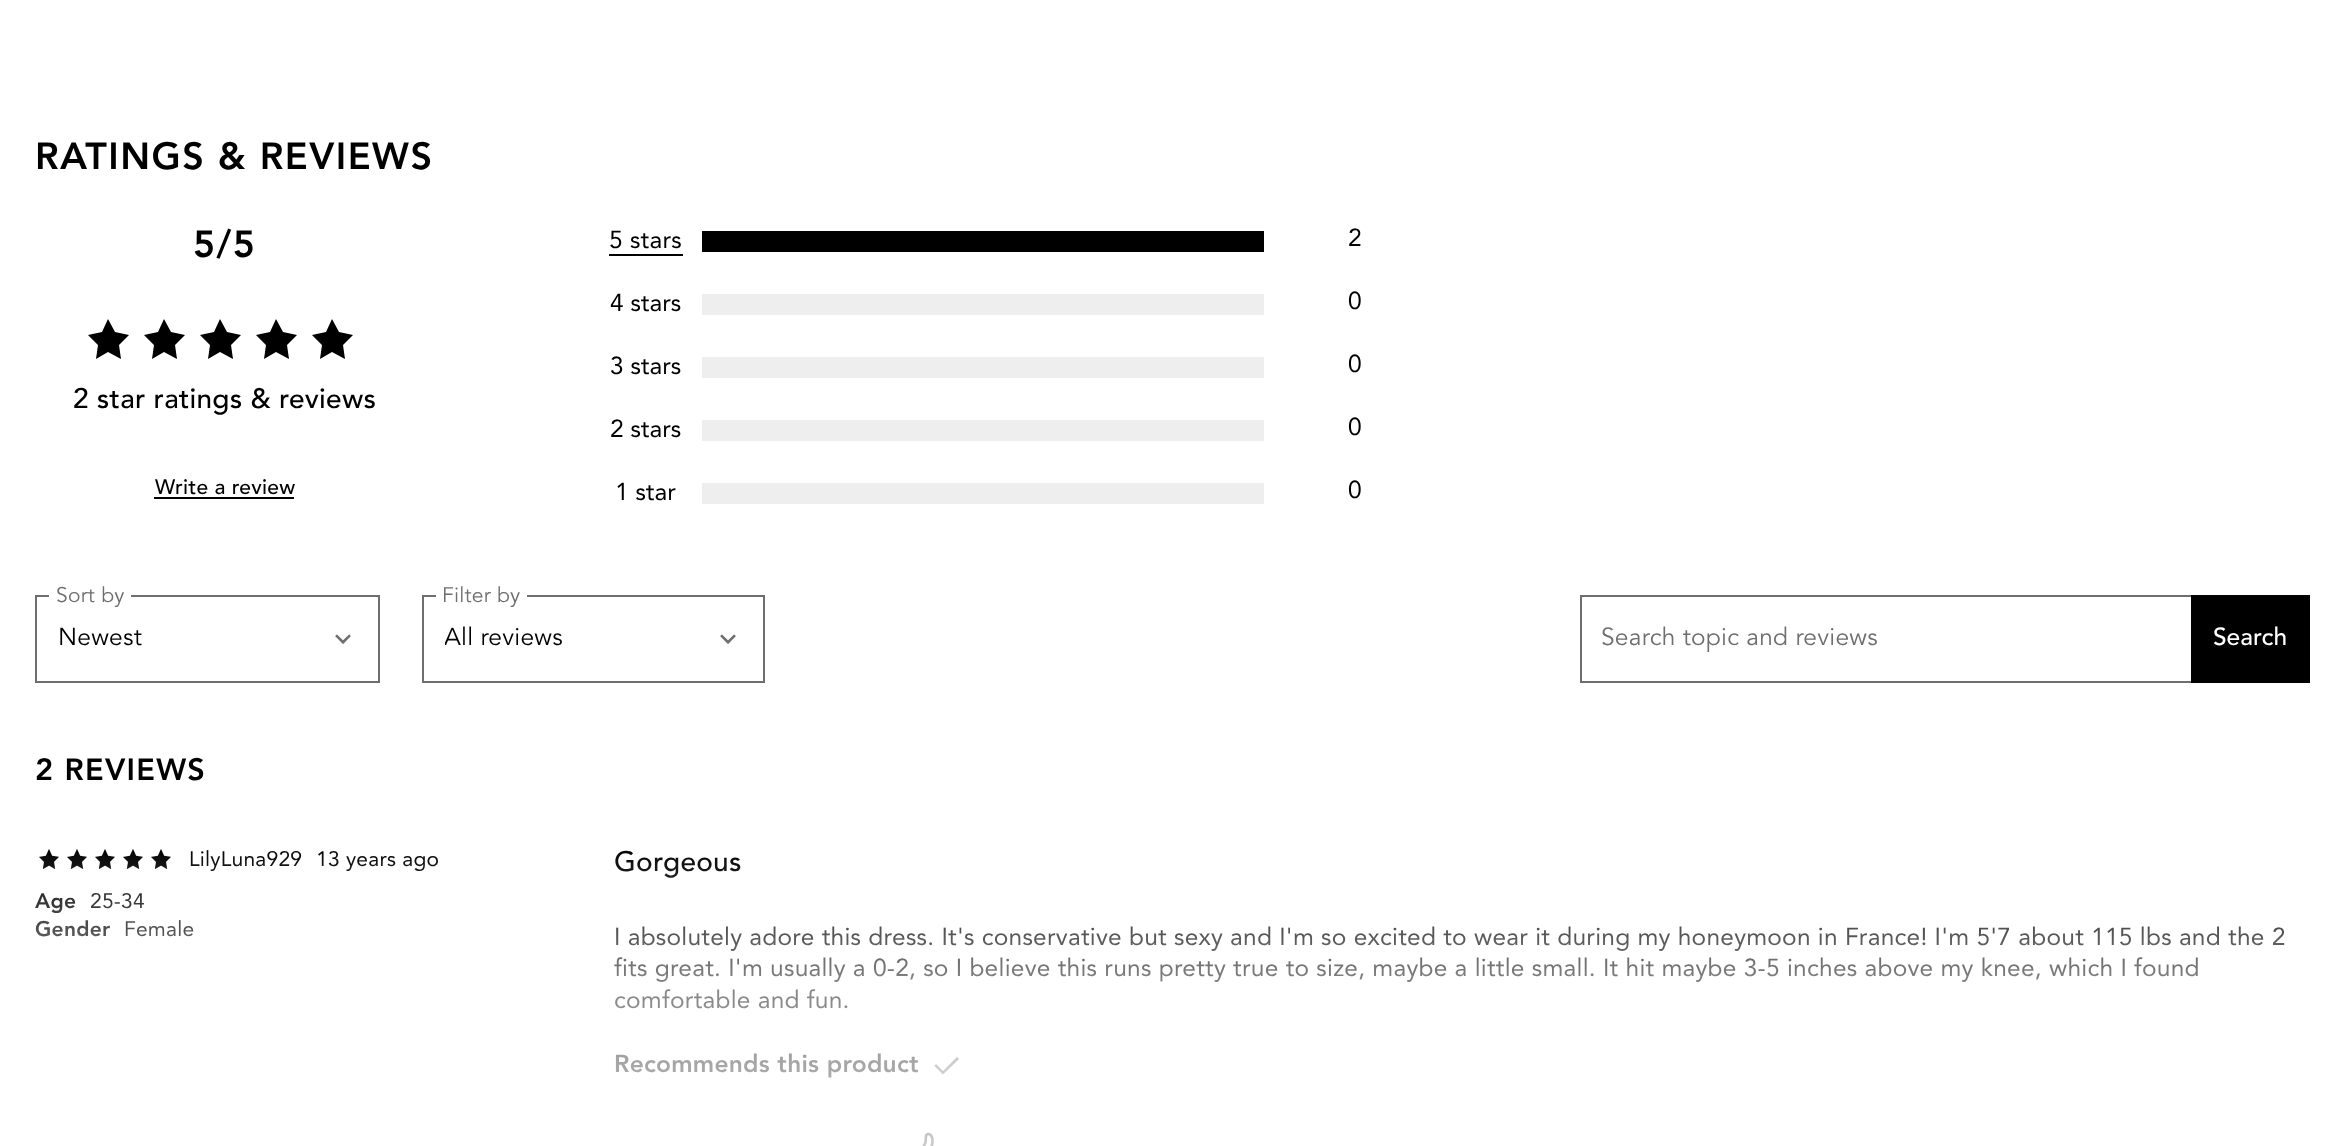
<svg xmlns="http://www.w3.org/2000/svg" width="2345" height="1146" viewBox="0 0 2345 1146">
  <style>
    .t1 { font: 900 37.5px Avenir; letter-spacing: 1.5px; fill: #000; }
    .t2 { font: 500 28px Avenir; letter-spacing: 0.25px; fill: #000; }
    .t3 { font: 500 21px Avenir; letter-spacing: 0.25px; fill: #000; }
    .t4 { font: 24.5px Avenir; letter-spacing: 0.25px; fill: #000; }
    .t5 { font: 24.5px Avenir; fill: #000; }
    .t6 { font: 21px 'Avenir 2'; letter-spacing: 0.25px; fill: #6e6e6e; }
    .t7 { font: 24.5px 'Avenir 2'; letter-spacing: 0.25px; fill: #000; }
    .t8 { font: 24.5px 'Avenir 2'; letter-spacing: 0.25px; fill: #6e6e6e; }
    .t9 { font: 500 24.5px Avenir; fill: #fff; }
    .t10 { font: 900 30.5px Avenir; letter-spacing: 1.25px; fill: #000; }
    .t11 { font: 21px Avenir; letter-spacing: 0.25px; fill: #000; }
    .t12 { font: 900 21px Avenir; letter-spacing: 0.25px; fill: #000; }
    .t13 { font: 900 24.5px Avenir; letter-spacing: 0.25px; fill: #000; }
  </style>
  <defs>
    <clipPath id="clip1"><rect x="445" y="623" width="248" height="32"/></clipPath>
    <linearGradient id="g1" gradientUnits="userSpaceOnUse" x1="1173" y1="845" x2="1173" y2="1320"><stop offset="0" stop-color="#fff" stop-opacity="0"/><stop offset="0.28" stop-color="#fff" stop-opacity="0.5"/><stop offset="0.88" stop-color="#fff"/></linearGradient>
  </defs>
  <rect width="100%" height="100%" fill="#fff"/>
  <text x="35" y="169" class="t1">RATINGS &amp; REVIEWS</text>
  <text x="193" y="257" class="t1">5/5</text>
  <path d="M115 332L108 319L102 332L88 335L98 345L96 359L108 352L121 359L119 345L129 335Z" fill="#000" fill-rule="evenodd"/>
  <path d="M171 332L164 319L158 332L144 335L154 345L152 359L164 352L177 359L175 345L185 335Z" fill="#000" fill-rule="evenodd"/>
  <path d="M227 332L220 319L214 332L200 335L210 345L208 359L220 352L233 359L231 345L241 335Z" fill="#000" fill-rule="evenodd"/>
  <path d="M283 332L276 319L270 332L256 335L266 345L264 359L276 352L289 359L287 345L297 335Z" fill="#000" fill-rule="evenodd"/>
  <path d="M339 332L332 319L326 332L312 335L322 345L320 359L332 352L345 359L343 345L353 335Z" fill="#000" fill-rule="evenodd"/>
  <text x="73" y="408" class="t2">2 star ratings &amp; reviews</text>
  <text x="155" y="494" class="t3">Write a review</text>
  <rect x="154" y="497" width="140" height="2" fill="#000"/>
  <text x="609" y="248" class="t4">5 stars</text>
  <rect x="609" y="254" width="74" height="2" fill="#000"/>
  <rect x="702" y="231" width="562" height="21" fill="#000"/>
  <text x="1348" y="246" class="t4">2</text>
  <text x="610" y="311" class="t5">4 stars</text>
  <rect x="702" y="294" width="562" height="21" fill="#eee"/>
  <text x="1348" y="309" class="t4">0</text>
  <text x="610" y="374" class="t5">3 stars</text>
  <rect x="702" y="357" width="562" height="21" fill="#eee"/>
  <text x="1348" y="372" class="t4">0</text>
  <text x="610" y="437" class="t5">2 stars</text>
  <rect x="702" y="420" width="562" height="21" fill="#eee"/>
  <text x="1348" y="435" class="t4">0</text>
  <text x="615" y="500" class="t5">1 star</text>
  <rect x="702" y="483" width="562" height="21" fill="#eee"/>
  <text x="1348" y="498" class="t4">0</text>
  <image x="335" y="634" width="16" height="10" href="images/1.png"/>
  <rect x="36" y="596" width="343" height="86" fill="none" stroke="#6e6e6e" stroke-width="2"/>
  <rect x="49" y="595" width="82" height="2" fill="#fff"/>
  <text x="56" y="602" class="t6">Sort by</text>
  <text x="58" y="645" class="t7">Newest</text>
  <image x="720" y="634" width="16" height="10" href="images/1.png"/>
  <rect x="423" y="596" width="341" height="86" fill="none" stroke="#6e6e6e" stroke-width="2"/>
  <rect x="436" y="595" width="91" height="2" fill="#fff"/>
  <text x="442" y="602" class="t6">Filter by</text>
  <g clip-path="url(#clip1)">
    <text x="444" y="645" class="t7">All reviews</text>
  </g>
  <rect x="1581" y="596" width="728" height="86" fill="none" stroke="#6e6e6e" stroke-width="2"/>
  <text x="1601" y="645" class="t8">Search topic and reviews</text>
  <rect x="2191" y="595" width="119" height="88" fill="#000"/>
  <text x="2213" y="645" class="t9">Search</text>
  <text x="35" y="780" class="t10">2 REVIEWS</text>
  <image x="39" y="849" width="20" height="20" href="images/2.png"/>
  <image x="67" y="849" width="20" height="20" href="images/2.png"/>
  <image x="95" y="849" width="20" height="20" href="images/2.png"/>
  <image x="123" y="849" width="20" height="20" href="images/2.png"/>
  <image x="151" y="849" width="20" height="20" href="images/2.png"/>
  <text x="189" y="866" class="t11">LilyLuna929</text>
  <text x="316" y="866" class="t11">13 years ago</text>
  <text x="35" y="908" class="t12">Age</text>
  <text x="90" y="908" class="t11">25-34</text>
  <text x="35" y="936" class="t12">Gender</text>
  <text x="124" y="936" class="t11">Female</text>
  <text x="614" y="871" class="t2">Gorgeous</text>
  <text x="614" y="945" class="t4">I absolutely adore this dress. It's conservative but sexy and I'm so excited to wear it during my honeymoon in France! I'm 5'7 about 115 lbs and the 2</text>
  <text x="614" y="976" class="t4">fits great. I'm usually a 0-2, so I believe this runs pretty true to size, maybe a little small. It hit maybe 3-5 inches above my knee, which I found</text>
  <text x="614" y="1008" class="t4">comfortable and fun.</text>
  <text x="614" y="1072" class="t13">Recommends this product</text>
  <path d="M959 1059L943 1074.5L934.5 1066L936 1064L943 1071L957 1057Z" fill="#6e6e6e" fill-rule="evenodd"/>
  <image x="922" y="1132" width="12" height="14" href="images/3.png"/>
  <rect x="35" y="851" width="2249" height="295" fill="url(#g1)"/>
</svg>
